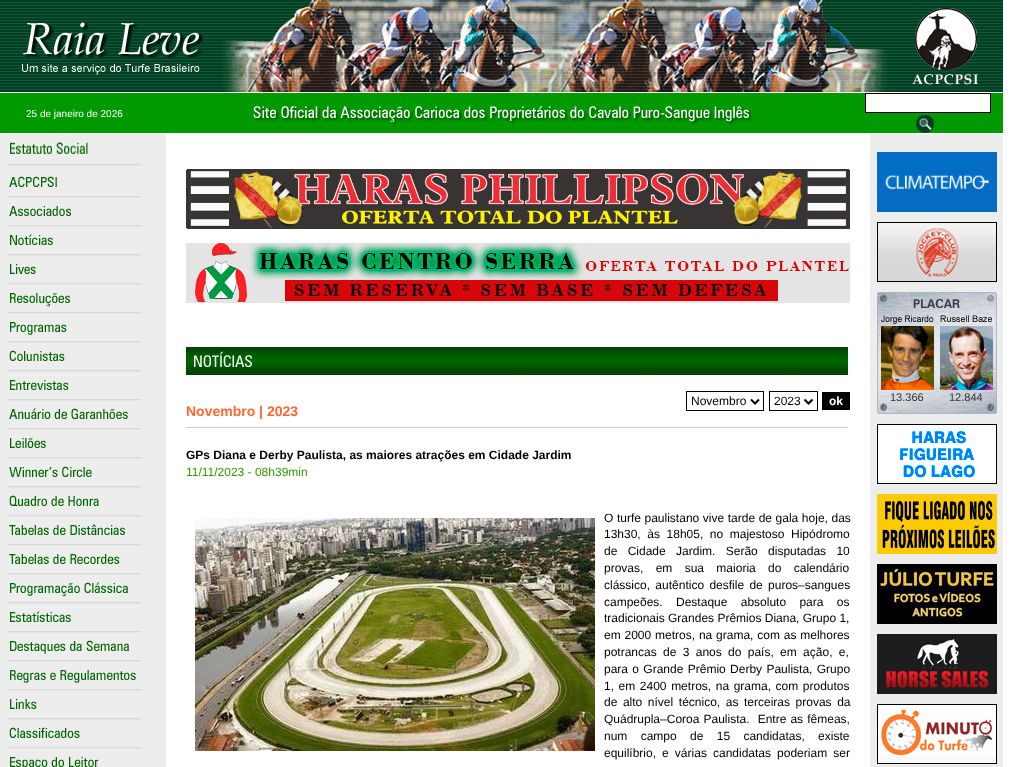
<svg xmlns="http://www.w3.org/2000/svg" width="1016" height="767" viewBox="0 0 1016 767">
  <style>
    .t1 { font: 10px Liberation Sans; fill: #fff; }
    .t2 { font: 12px Liberation Sans; fill: #000; }
    .t3 { font: bold 12px Liberation Sans; fill: #fff; }
    .t4 { font: bold 14px Liberation Sans; fill: #f63; }
    .t5 { font: bold 12px Liberation Sans; fill: #000; }
    .t6 { font: 12px Liberation Sans; fill: #390; }
    .t7 { font: 11px Liberation Sans; fill: #333; }
  </style>
  <rect width="100%" height="100%" fill="#fff"/>
  <image x="0" y="0" width="1003" height="93" href="images/1.png"/>
  <image x="22" y="22" width="181" height="53" href="images/2.png"/>
  <rect x="0" y="93" width="1003" height="40" fill="#090"/>
  <text x="26" y="117" class="t1">25 de janeiro de 2026</text>
  <image x="253" y="106" width="500" height="20" href="images/3.png"/>
  <rect x="865.5" y="93.5" width="125" height="19" fill="#fff" stroke="#000"/>
  <image x="916" y="115" width="18" height="18" href="images/4.png"/>
  <rect x="0" y="134" width="166" height="633" fill="#ededed"/>
  <image x="8" y="141" width="133" height="25" href="images/5.png"/>
  <image x="8" y="176" width="133" height="22" href="images/6.png"/>
  <image x="8" y="206" width="133" height="21" href="images/7.png"/>
  <image x="8" y="234" width="133" height="22" href="images/8.png"/>
  <image x="8" y="264" width="133" height="21" href="images/9.png"/>
  <image x="8" y="293" width="133" height="21" href="images/10.png"/>
  <image x="8" y="322" width="133" height="21" href="images/11.png"/>
  <image x="8" y="350" width="133" height="22" href="images/12.png"/>
  <image x="8" y="380" width="133" height="21" href="images/13.png"/>
  <image x="8" y="408" width="133" height="22" href="images/14.png"/>
  <image x="8" y="438" width="133" height="21" href="images/15.png"/>
  <image x="8" y="466" width="133" height="22" href="images/16.png"/>
  <image x="8" y="495" width="133" height="22" href="images/17.png"/>
  <image x="8" y="524" width="133" height="22" href="images/18.png"/>
  <image x="8" y="554" width="133" height="21" href="images/19.png"/>
  <image x="8" y="582" width="133" height="22" href="images/20.png"/>
  <image x="8" y="611" width="133" height="22" href="images/21.png"/>
  <image x="8" y="640" width="133" height="22" href="images/22.png"/>
  <image x="8" y="670" width="133" height="21" href="images/23.png"/>
  <image x="8" y="699" width="133" height="21" href="images/24.png"/>
  <image x="8" y="727" width="133" height="22" href="images/25.png"/>
  <image x="10" y="757" width="89" height="10" href="images/26.png"/>
  <image x="186" y="169" width="664" height="60" href="images/27.png"/>
  <image x="186" y="243" width="664" height="60" href="images/28.png"/>
  <image x="186" y="347" width="662" height="28" href="images/29.png"/>
  <rect x="686.5" y="391.5" width="77" height="19" fill="none" stroke="#000"/>
  <path d="M751 399.5L755 403.5L759 399.5" fill="none" stroke="#000" stroke-width="2"/>
  <text x="691" y="405" class="t2">Novembro</text>
  <rect x="769.5" y="391.5" width="48" height="19" fill="none" stroke="#000"/>
  <path d="M804.5 399.5L808.5 403.5L812.5 399.5" fill="none" stroke="#000" stroke-width="2"/>
  <text x="774" y="405" class="t2">2023</text>
  <rect x="822" y="392" width="28" height="18" fill="#000"/>
  <text x="829" y="405" class="t3">ok</text>
  <text x="186" y="416" class="t4">Novembro | 2023</text>
  <rect x="186" y="427" width="662" height="1" fill="#ccc"/>
  <text x="186" y="459" class="t5">GPs Diana e Derby Paulista, as maiores atrações em Cidade Jardim</text>
  <text x="186" y="476" class="t6">11/11/2023 - 08h39min</text>
  <image x="195" y="518" width="400" height="233" href="images/30.png"/>
  <text x="604" y="522" word-spacing="0.25" class="t2">O turfe paulistano vive tarde de gala hoje, das</text>
  <text x="604" y="538" word-spacing="3.25" class="t2">13h30, às 18h05, no majestoso Hipódromo</text>
  <text x="604" y="555" word-spacing="7" class="t2">de Cidade Jardim. Serão disputadas 10</text>
  <text x="604" y="572" word-spacing="9" class="t2">provas, em sua maioria do calendário</text>
  <text x="604" y="589" word-spacing="2" class="t2">clássico, autêntico desfile de puros–sangues</text>
  <text x="604" y="606" word-spacing="10" class="t2">campeões. Destaque absoluto para os</text>
  <text x="604" y="622" class="t2">tradicionais Grandes Prêmios Diana, Grupo 1,</text>
  <text x="604" y="639" word-spacing="0.5" class="t2">em 2000 metros, na grama, com as melhores</text>
  <text x="604" y="656" word-spacing="3" class="t2">potrancas de 3 anos do país, em ação, e,</text>
  <text x="604" y="673" word-spacing="1" class="t2">para o Grande Prêmio Derby Paulista, Grupo</text>
  <text x="604" y="690" word-spacing="1.25" class="t2">1, em 2400 metros, na grama, com produtos</text>
  <text x="604" y="706" word-spacing="2.25" class="t2">de alto nível técnico, as terceiras provas da</text>
  <text x="604" y="723" word-spacing="0.75" class="t2" xml:space="preserve">Quádrupla–Coroa Paulista.  Entre as fêmeas,</text>
  <text x="604" y="740" word-spacing="10" class="t2">num campo de 15 candidatas, existe</text>
  <text x="604" y="757" word-spacing="2.75" class="t2">equilíbrio, e várias candidatas poderiam ser</text>
  <rect x="870" y="134" width="133" height="633" fill="#ededed"/>
  <image x="877" y="152" width="120" height="60" href="images/31.png"/>
  <image x="877" y="222" width="120" height="60" href="images/32.png"/>
  <image x="877" y="292" width="120" height="122" href="images/33.png"/>
  <text x="890" y="401" class="t7">13.366</text>
  <text x="949" y="401" class="t7">12.844</text>
  <image x="877" y="424" width="120" height="60" href="images/34.png"/>
  <image x="877" y="494" width="120" height="60" href="images/35.png"/>
  <image x="877" y="564" width="120" height="60" href="images/36.png"/>
  <image x="877" y="634" width="120" height="60" href="images/37.png"/>
  <image x="877" y="704" width="120" height="60" href="images/38.png"/>
</svg>
